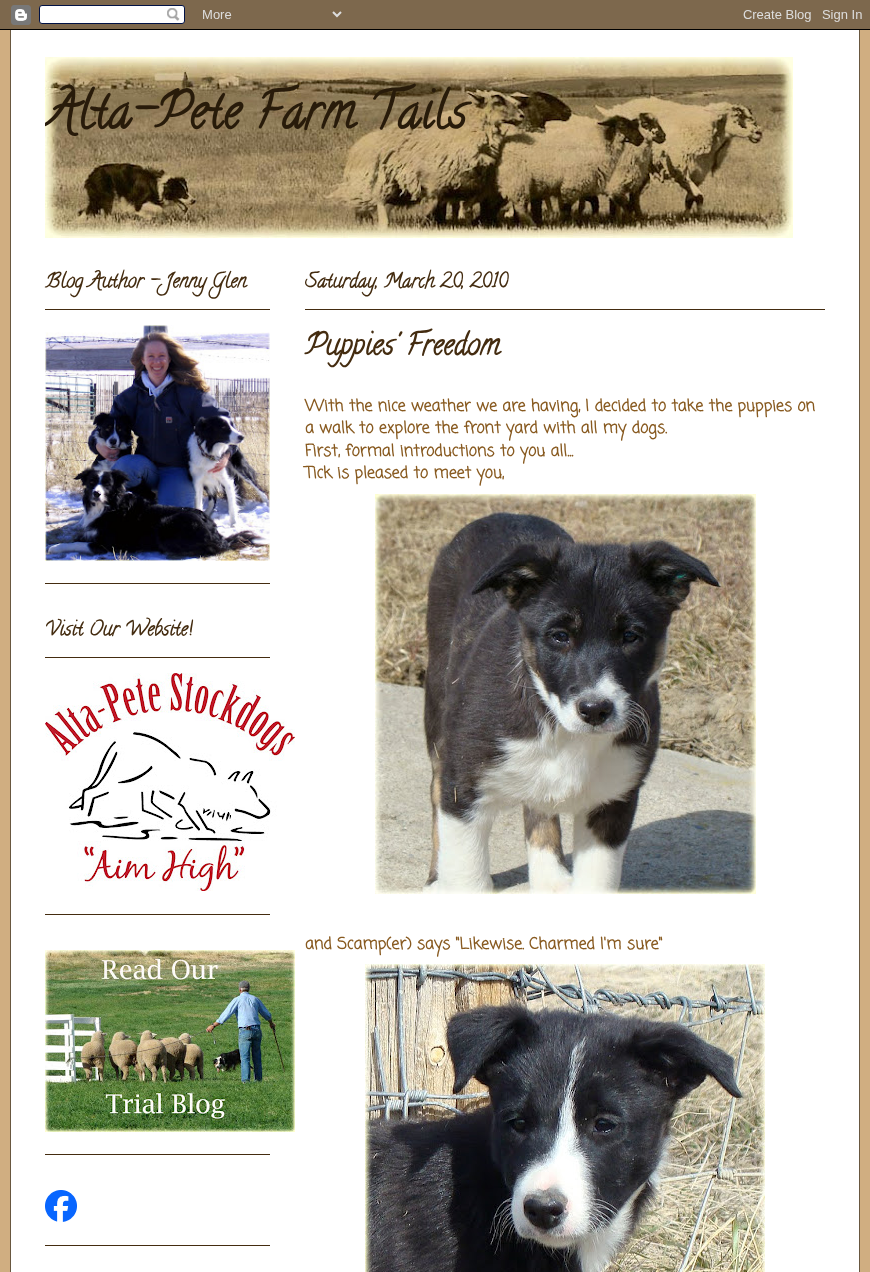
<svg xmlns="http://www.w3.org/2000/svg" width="870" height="1272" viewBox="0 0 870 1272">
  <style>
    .t1 { font: bold 50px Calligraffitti; fill: #281b0a; }
    .t2 { font: bold 20px Calligraffitti; fill: #442c10; }
    .t3 { font: bold 30px Calligraffitti; fill: #442c10; }
    .t4 { font: bold 16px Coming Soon; fill: #885a20; }
  </style>
  <defs>
    <clipPath id="clip1"><rect x="45" y="57" width="780" height="181"/></clipPath>
  </defs>
  <rect width="100%" height="100%" fill="#d0ae81"/>
  <image x="0" y="0" width="870" height="30" href="images/1.png"/>
  <rect x="11" y="30" width="848" height="1242" fill="#fff"/>
  <rect x="859" y="30" width="1" height="1242" fill="#685740"/>
  <rect x="10" y="30" width="1" height="1242" fill="#685740"/>
  <image x="45" y="57" width="748" height="181" href="images/2.png"/>
  <g clip-path="url(#clip1)">
    <text x="45" y="127" class="t1">Alta-Pete Farm Tails</text>
  </g>
  <rect x="45" y="583" width="225" height="1" fill="#442c10"/>
  <rect x="45" y="309" width="225" height="1" fill="#442c10"/>
  <text x="45" y="287" class="t2">Blog Author - Jenny Glen</text>
  <image x="45" y="325" width="225" height="236" href="images/3.png"/>
  <rect x="45" y="914" width="225" height="1" fill="#442c10"/>
  <rect x="45" y="657" width="225" height="1" fill="#442c10"/>
  <text x="45" y="635" class="t2">Visit Our Website!</text>
  <image x="45" y="673" width="250" height="218" href="images/4.png"/>
  <rect x="45" y="1154" width="225" height="1" fill="#442c10"/>
  <image x="45" y="950" width="250" height="182" href="images/5.png"/>
  <rect x="45" y="1245" width="225" height="1" fill="#442c10"/>
  <image x="45" y="1190" width="32" height="32" href="images/6.png"/>
  <rect x="305" y="309" width="520" height="1" fill="#442c10"/>
  <text x="305" y="287" class="t2">Saturday, March 20, 2010</text>
  <text x="305" y="354" class="t3">Puppies' Freedom</text>
  <text x="305" y="411" class="t4">With the nice weather we are having, I decided to take the puppies on</text>
  <text x="305" y="433" class="t4">a walk to explore the front yard with all my dogs.</text>
  <text x="305" y="456" class="t4">First, formal introductions to you all...</text>
  <text x="305" y="478" class="t4">Tick is pleased to meet you,</text>
  <image x="375" y="494" width="381" height="400" href="images/7.png"/>
  <text x="305" y="949" class="t4">and Scamp(er) says "Likewise. Charmed I'm sure"</text>
  <image x="365" y="964" width="400" height="308" href="images/8.png"/>
</svg>
